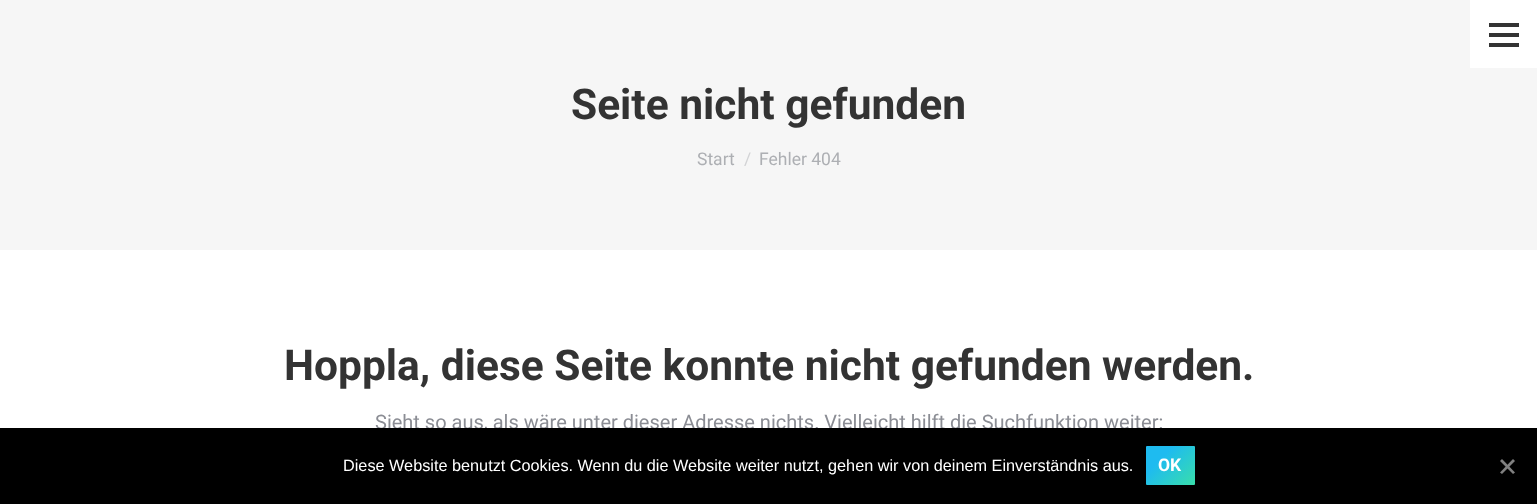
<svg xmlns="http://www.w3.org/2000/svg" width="1537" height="504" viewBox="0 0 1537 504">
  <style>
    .t1 { font: bold 42.5px Roboto; fill: #333; }
    .t2 { font: 17.5px Roboto; fill: #adafb3; }
    .t3 { font: 17.5px Roboto; fill: #d2d3d5; }
    .t4 { font: 20px Roboto; fill: #8b8d94; }
    .t5 { font: 16.25px Liberation Sans; fill: #fff; }
    .t6 { font: bold 17.5px Roboto; fill: #fff; }
  </style>
  <defs>
    <linearGradient id="g1" gradientUnits="userSpaceOnUse" x1="1149" y1="444" x2="1193" y2="488"><stop offset="0.3" stop-color="#1ebbf0"/><stop offset="1" stop-color="#39dfaa"/></linearGradient>
  </defs>
  <rect width="100%" height="100%" fill="#fff"/>
  <rect x="0" y="0" width="1537" height="250" fill="#f6f6f6"/>
  <rect x="1470" y="0" width="67" height="68" fill="#fff"/>
  <rect x="1489" y="33" width="30" height="4" fill="#333"/>
  <rect x="1489" y="23" width="30" height="4" fill="#333"/>
  <rect x="1489" y="43" width="30" height="4" fill="#333"/>
  <text x="571" y="119" class="t1">Seite nicht gefunden</text>
  <text x="697" y="165" class="t2">Start</text>
  <text x="744" y="165" class="t3">/</text>
  <text x="759" y="165" class="t2">Fehler 404</text>
  <text x="284" y="380" class="t1">Hoppla, diese Seite konnte nicht gefunden werden.</text>
  <text x="375" y="429" class="t4">Sieht so aus, als wäre unter dieser Adresse nichts. Vielleicht hilft die Suchfunktion weiter:</text>
  <rect x="0" y="428" width="1537" height="76" fill="#000"/>
  <text x="343" y="471" class="t5">Diese Website benutzt Cookies. Wenn du die Website weiter nutzt, gehen wir von deinem Einverständnis aus.</text>
  <rect x="1146" y="446" width="49" height="39" rx="1" fill="url(#g1)"/>
  <text x="1158" y="471" class="t6">OK</text>
  <path d="M1513 459L1515 461L1502 474L1500 472.5Z" fill="#808080"/>
  <path d="M1500 461L1502 459L1515 472.5L1513 474Z" fill="#808080"/>
</svg>
